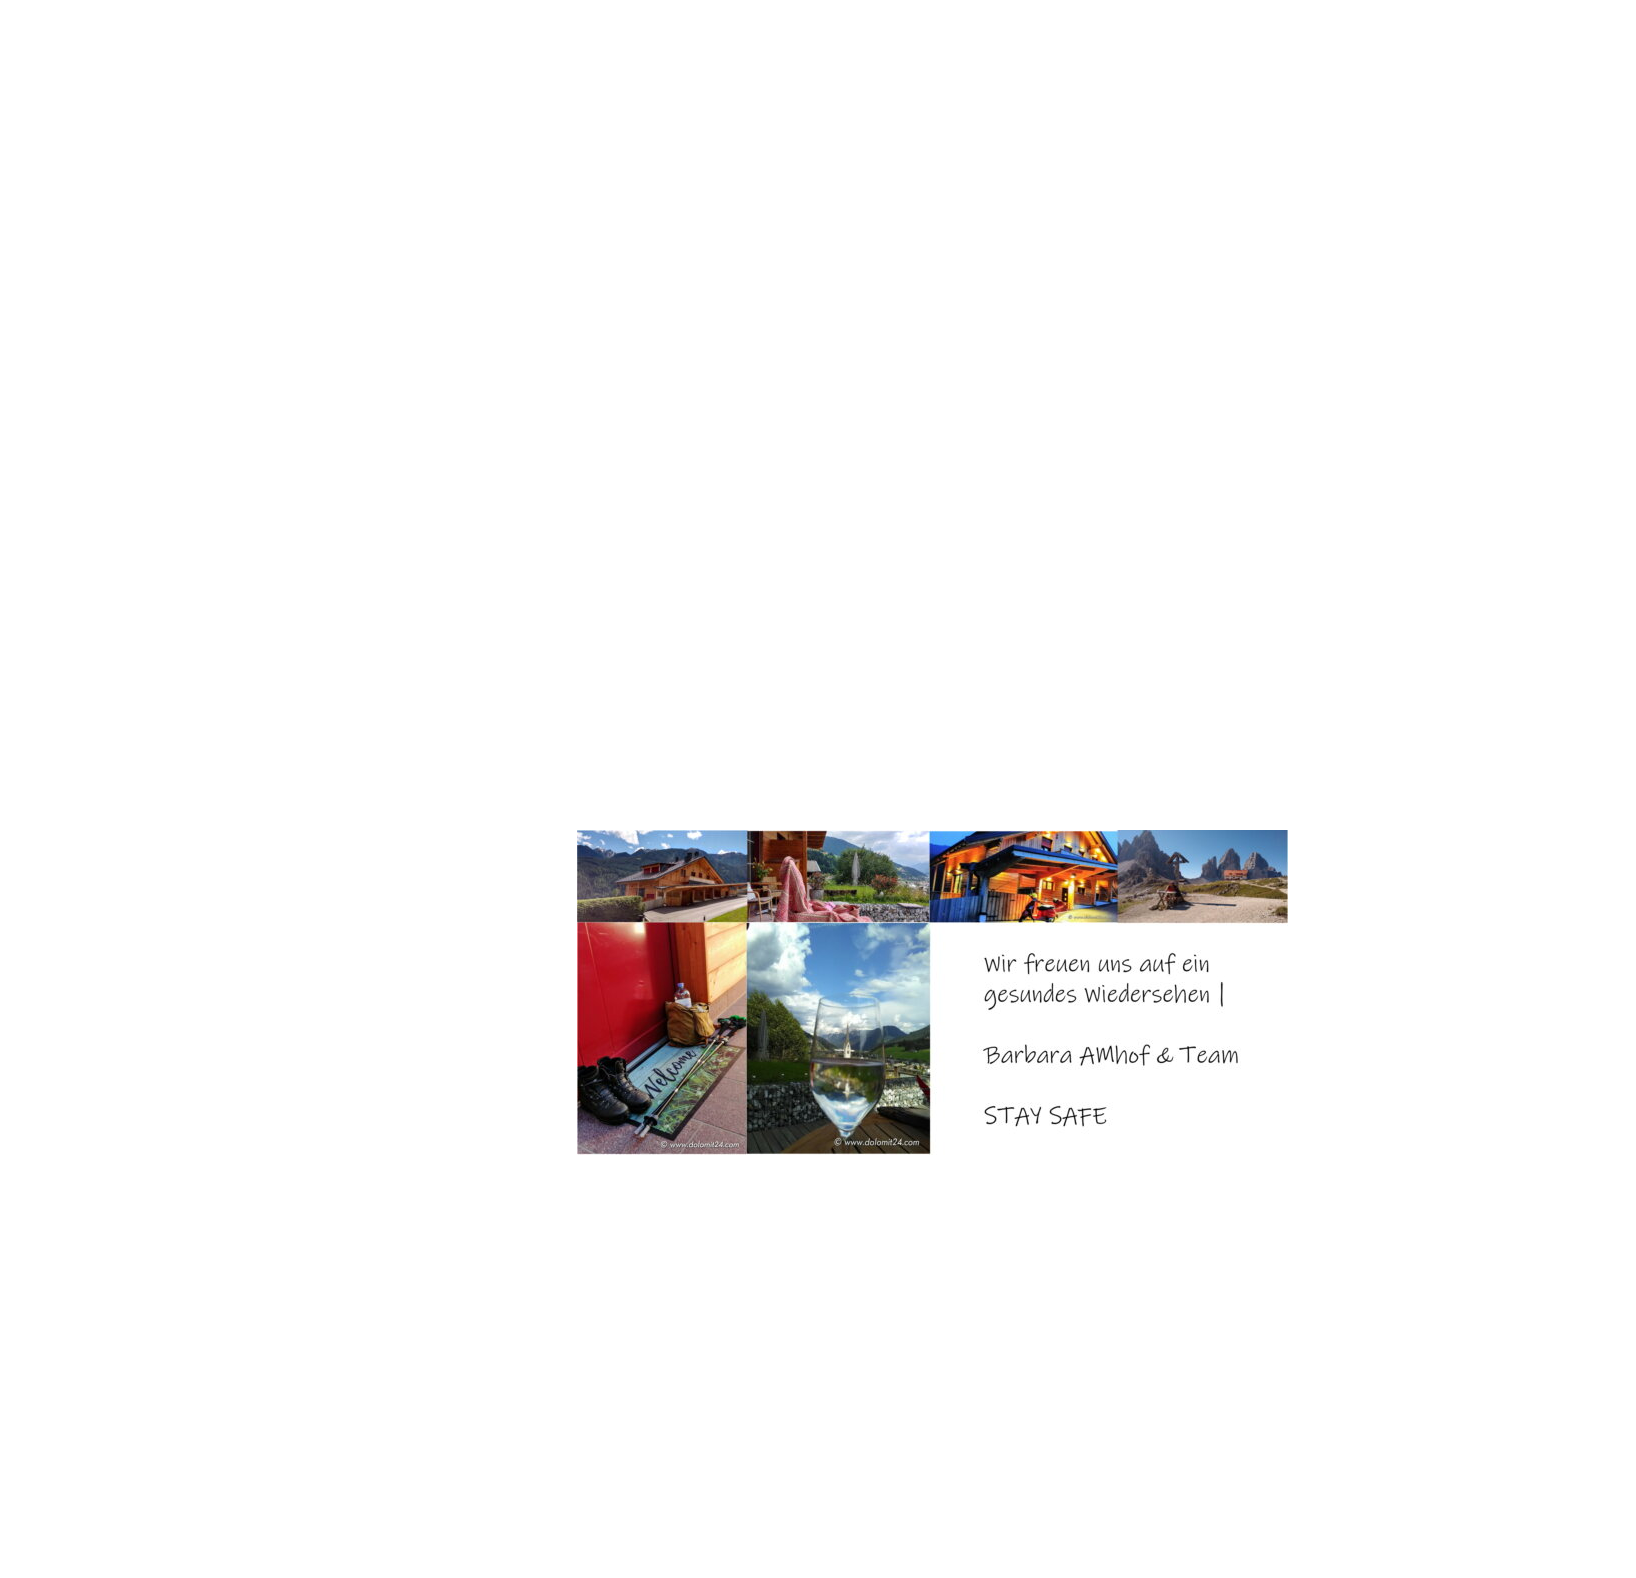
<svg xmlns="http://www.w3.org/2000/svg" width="1636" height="1578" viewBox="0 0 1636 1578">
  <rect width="100%" height="100%" fill="#fff"/>
  <image x="577" y="830" width="711" height="325" href="images/1.png"/>
</svg>
